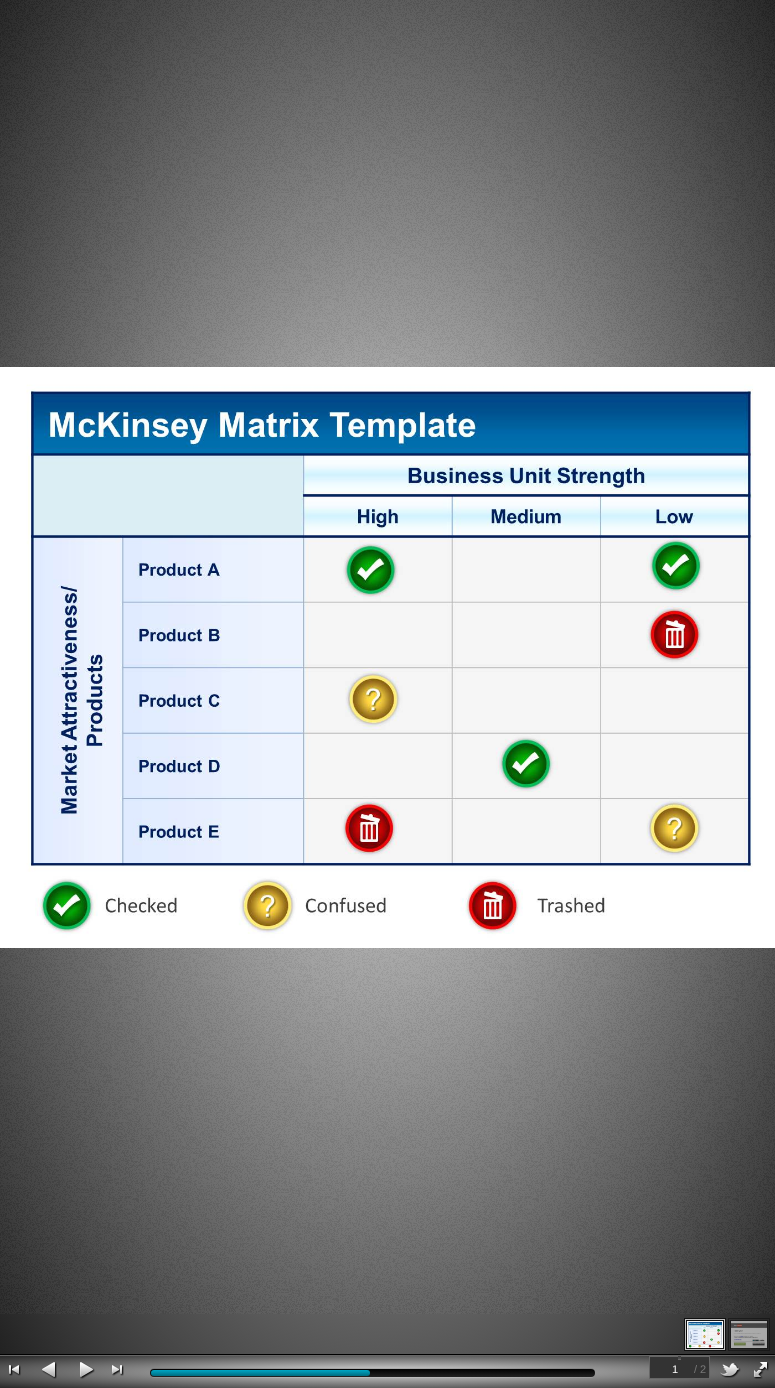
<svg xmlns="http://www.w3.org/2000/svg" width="775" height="1388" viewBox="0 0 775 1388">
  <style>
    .t1 { font: 11px Liberation Sans; fill: #fff; }
    .t2 { font: 11px Liberation Sans; fill: #777; }
  </style>
  <defs>
    <radialGradient id="g1" gradientUnits="userSpaceOnUse" cx="0" cy="0" r="1" gradientTransform="matrix(548 0 0 957 388 677)"><stop offset="0" stop-color="#ddd"/><stop offset="1" stop-color="#222"/></radialGradient>
    <radialGradient id="g2" gradientUnits="userSpaceOnUse" cx="0" cy="0" r="1" gradientTransform="matrix(548 0 0 957 388 677)"><stop offset="0" stop-color="#f5f5f5"/><stop offset="1" stop-color="#bdbdbd"/></radialGradient>
    <radialGradient id="g3" gradientUnits="userSpaceOnUse" cx="0" cy="0" r="1" gradientTransform="matrix(548 0 0 24 388 1372)"><stop offset="0" stop-color="#ddd"/><stop offset="1" stop-color="#222"/></radialGradient>
    <linearGradient id="g4" gradientUnits="userSpaceOnUse" x1="373" y1="1369" x2="373" y2="1377"><stop offset="0" stop-color="#000"/><stop offset="1" stop-color="#222"/></linearGradient>
    <linearGradient id="g5" gradientUnits="userSpaceOnUse" x1="261" y1="1370" x2="261" y2="1376"><stop offset="0" stop-color="#00a7c5"/><stop offset="1" stop-color="#006c80"/></linearGradient>
  </defs>
  <rect width="100%" height="100%" fill="#fff"/>
  <rect x="0" y="0" width="775" height="1354" fill="url(#g1)"/>
  <rect x="685" y="1319" width="40" height="31" fill="url(#g2)"/>
  <rect x="0" y="1354" width="775" height="1" fill="#000"/>
  <image x="0" y="0" width="775" height="1314" href="images/1.png"/>
  <image x="0" y="367" width="775" height="581" href="images/2.png"/>
  <rect x="684.5" y="1318.5" width="41" height="32" fill="none" stroke="#111"/>
  <rect x="686.5" y="1320.5" width="37" height="28" fill="none" stroke="#111"/>
  <image x="687" y="1321" width="36" height="27" href="images/3.png"/>
  <rect x="728.5" y="1318.5" width="41" height="32" fill="none" stroke="#11111199"/>
  <rect x="730.5" y="1320.5" width="37" height="28" fill="none" stroke="#11111199"/>
  <image x="731" y="1321" width="36" height="27" href="images/4.png"/>
  <rect x="0" y="1356" width="775" height="32" fill="url(#g3)"/>
  <rect x="0" y="1355" width="775" height="1" fill="#666"/>
  <image x="9" y="1365" width="12" height="11" href="images/5.png"/>
  <image x="42" y="1362" width="15" height="17" href="images/6.png"/>
  <image x="80" y="1362" width="15" height="17" href="images/7.png"/>
  <image x="112" y="1365" width="12" height="11" href="images/8.png"/>
  <path d="M154 1368C152 1368 150 1370 150 1372C150 1371 152 1369 154 1369H591C593 1369 595 1371 595 1372C595 1370 593 1368 591 1368Z" fill="#0000001f"/>
  <path d="M150 1374C150 1376 152 1378 154 1378H591C593 1378 595 1376 595 1374C595 1375 593 1377 591 1377H154C152 1377 150 1375 150 1374Z" fill="#ffffff1f"/>
  <rect x="150" y="1369" width="445" height="8" rx="4" fill="url(#g4)"/>
  <rect x="151" y="1370" width="219" height="6" rx="3" fill="url(#g5)"/>
  <rect x="650" y="1357" width="28" height="21" fill="#333"/>
  <rect x="649" y="1356" width="29" height="1" fill="#666"/>
  <rect x="649" y="1378" width="29" height="1" fill="#666"/>
  <rect x="649" y="1356" width="1" height="23" fill="#666"/>
  <rect x="678" y="1359" width="3" height="20" fill="#333"/>
  <rect x="678" y="1359" width="3" height="1" fill="#666"/>
  <rect x="678" y="1378" width="16" height="1" fill="#666"/>
  <rect x="681" y="1357" width="28" height="21" fill="#333"/>
  <rect x="681" y="1356" width="29" height="1" fill="#666"/>
  <rect x="709" y="1356" width="1" height="23" fill="#666"/>
  <text x="672" y="1373" class="t1">1</text>
  <text x="694" y="1373" class="t2">/ 2</text>
  <image x="720" y="1363" width="21" height="15" href="images/9.png"/>
  <image x="754" y="1362" width="15" height="17" href="images/10.png"/>
</svg>
